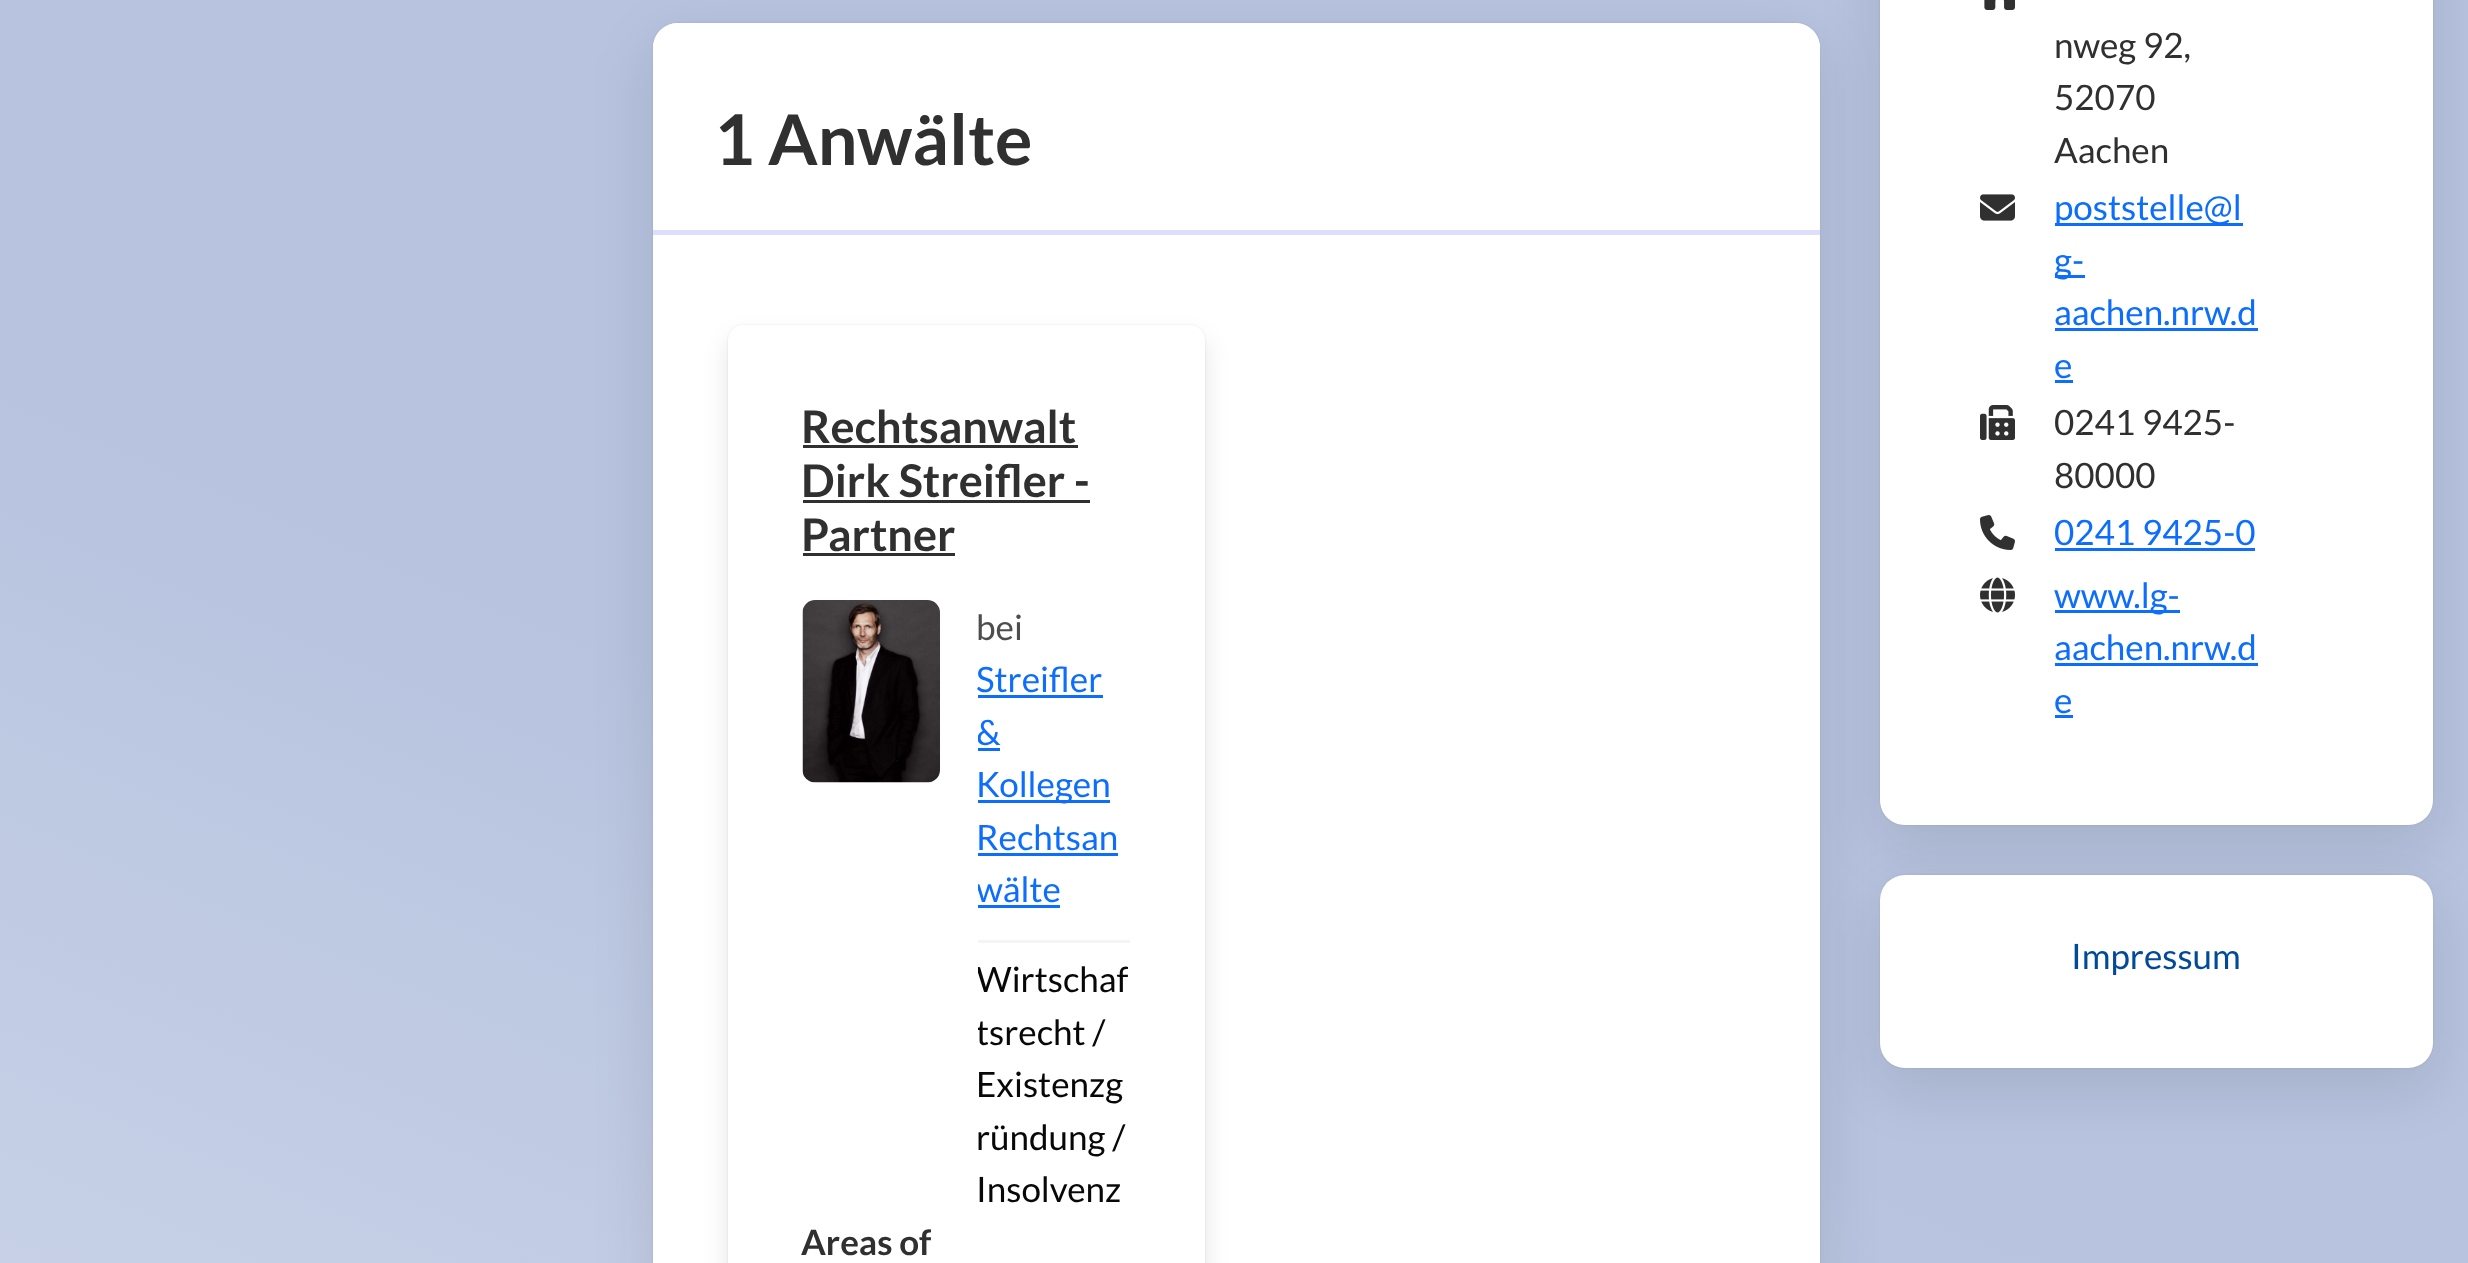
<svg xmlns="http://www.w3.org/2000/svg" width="2468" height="1263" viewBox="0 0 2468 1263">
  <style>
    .t1 { font: bold 70px Lato; fill: #303030; }
    .t2 { font: bold 45px Lato; fill: #303030; }
    .t3 { font: 35px Lato; fill: #4d4d4d; }
    .t4 { font: 35px Lato; fill: #0d6efd; }
    .t5 { font: 35px Lato; fill: #080808; }
    .t6 { font: bold 35px Lato; fill: #303030; }
    .t7 { font: 35px Lato; fill: #303030; }
    .t8 { font: 35px Lato; fill: #004a99; }
  </style>
  <defs>
    <linearGradient id="g1" gradientUnits="userSpaceOnUse" x1="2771" y1="-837" x2="-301" y2="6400"><stop offset="0.28" stop-color="#b7c3df"/><stop offset="0.74" stop-color="#fdfdff"/></linearGradient>
    <clipPath id="clip1"><rect x="978" y="600" width="152" height="615"/></clipPath>
    <clipPath id="clip2"><rect x="978" y="953" width="152" height="262"/></clipPath>
  </defs>
  <rect width="100%" height="100%" fill="#fff"/>
  <rect x="0" y="0" width="2468" height="1263" fill="url(#g1)"/>
  <rect x="653" y="23" width="1167" height="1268" rx="25" fill="#00000014" filter="blur(1px)"/>
  <rect x="653" y="43" width="1167" height="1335" rx="25" fill="#0000001a" filter="blur(30px)"/>
  <rect x="653" y="23" width="1167" height="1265" rx="25" fill="#fff"/>
  <path d="M678 23H1795C1809 23 1820 34 1820 48V235H653V48C653 34 664 23 678 23Z" fill="#fff"/>
  <rect x="653" y="230" width="1167" height="5" fill="#ddddfe"/>
  <text x="714" y="165" class="t1">1 Anwälte</text>
  <rect x="728" y="325" width="477" height="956" rx="15" fill="#00000014" filter="blur(1px)"/>
  <rect x="728" y="338" width="477" height="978" rx="15" fill="#0000001a" filter="blur(12.5px)"/>
  <rect x="728" y="325" width="477" height="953" rx="15" fill="#fff"/>
  <text x="801" y="443" class="t2">Rechtsanwalt</text>
  <rect x="803" y="445" width="275" height="3" fill="#303030"/>
  <text x="801" y="497" class="t2">Dirk Streifler -</text>
  <rect x="803" y="500" width="287" height="3" fill="#303030"/>
  <text x="801" y="551" class="t2">Partner</text>
  <rect x="803" y="553" width="152" height="3" fill="#303030"/>
  <image x="802" y="600" width="138" height="183" href="images/1.png"/>
  <text x="976" y="640" class="t3">bei</text>
  <text x="976" y="692" class="t4">Streifler</text>
  <rect x="978" y="695" width="125" height="3" fill="#0d6efd"/>
  <g clip-path="url(#clip1)">
    <text x="976" y="745" class="t4">&amp;</text>
  </g>
  <rect x="978" y="748" width="22" height="3" fill="#0d6efd"/>
  <rect x="978" y="800" width="132" height="3" fill="#0d6efd"/>
  <text x="976" y="797" class="t4">Kollegen</text>
  <text x="976" y="850" class="t4">Rechtsan</text>
  <rect x="978" y="853" width="140" height="3" fill="#0d6efd"/>
  <g clip-path="url(#clip1)">
    <text x="976" y="902" class="t4">wälte</text>
  </g>
  <rect x="978" y="905" width="82" height="3" fill="#0d6efd"/>
  <rect x="978" y="940" width="152" height="3" fill="#f5f5f5"/>
  <g clip-path="url(#clip2)">
    <text x="976" y="992" class="t5">Wirtschaf</text>
    <text x="976" y="1045" class="t5">tsrecht /</text>
  </g>
  <text x="976" y="1097" class="t5">Existenzg</text>
  <text x="976" y="1150" class="t5">ründung /</text>
  <text x="976" y="1202" class="t5">Insolvenz</text>
  <text x="801" y="1255" class="t6">Areas of</text>
  <rect x="1880" y="-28" width="553" height="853" rx="25" fill="#00000014" filter="blur(1px)"/>
  <rect x="1880" y="-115" width="553" height="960" rx="25" fill="#0000001a" filter="blur(30px)"/>
  <rect x="1880" y="895" width="553" height="193" rx="25" fill="#0000001a" filter="blur(30px)"/>
  <path d="M1880-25H2433V800C2433 814 2422 825 2408 825H1905C1891 825 1880 814 1880 800Z" fill="#fff"/>
  <image x="1984" y="0" width="32" height="10" href="images/2.png"/>
  <text x="2054" y="58" class="t7">nweg 92,</text>
  <text x="2054" y="110" class="t7">52070</text>
  <text x="2054" y="163" class="t7">Aachen</text>
  <image x="1980" y="194" width="35" height="27" href="images/3.png"/>
  <rect x="2055" y="223" width="188" height="3" fill="#0d6efd"/>
  <text x="2054" y="220" class="t4">poststelle@l</text>
  <rect x="2055" y="275" width="30" height="3" fill="#0d6efd"/>
  <text x="2054" y="273" class="t4">g-</text>
  <text x="2054" y="325" class="t4">aachen.nrw.d</text>
  <rect x="2055" y="328" width="203" height="3" fill="#0d6efd"/>
  <text x="2054" y="378" class="t4">e</text>
  <rect x="2055" y="380" width="18" height="3" fill="#0d6efd"/>
  <image x="1980" y="405" width="35" height="35" href="images/4.png"/>
  <text x="2054" y="435" class="t7">0241 9425-</text>
  <text x="2054" y="488" class="t7">80000</text>
  <image x="1980" y="515" width="35" height="35" href="images/5.png"/>
  <text x="2054" y="545" class="t4">0241 9425-0</text>
  <rect x="2055" y="548" width="200" height="3" fill="#0d6efd"/>
  <image x="1980" y="577" width="35" height="36" href="images/6.png"/>
  <rect x="2055" y="610" width="125" height="3" fill="#0d6efd"/>
  <text x="2054" y="608" class="t4">www.lg-</text>
  <text x="2054" y="660" class="t4">aachen.nrw.d</text>
  <rect x="2055" y="663" width="203" height="3" fill="#0d6efd"/>
  <text x="2054" y="713" class="t4">e</text>
  <rect x="2055" y="715" width="18" height="3" fill="#0d6efd"/>
  <rect x="1880" y="875" width="553" height="193" rx="25" fill="#00000014" filter="blur(1px)"/>
  <rect x="1880" y="875" width="553" height="193" rx="25" fill="#fff"/>
  <text x="2071" y="969" class="t8">Impressum</text>
</svg>
